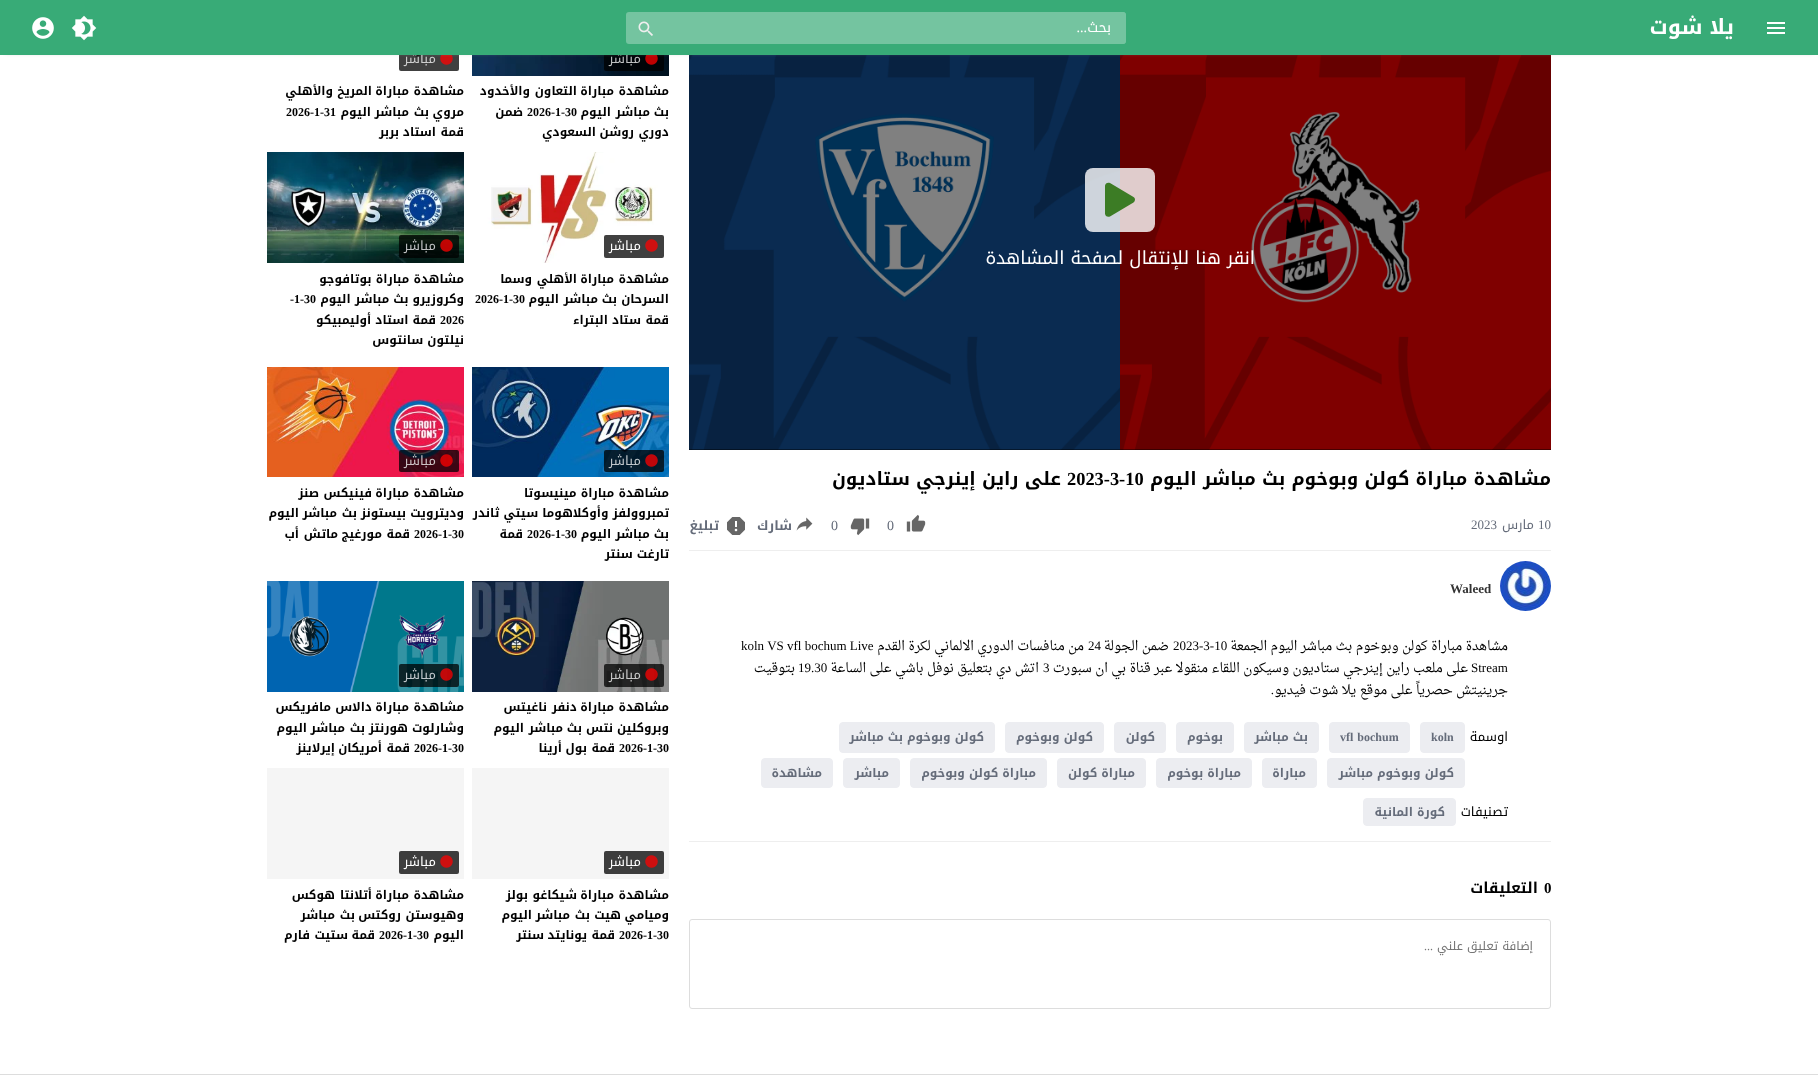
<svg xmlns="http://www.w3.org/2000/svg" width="1818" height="1090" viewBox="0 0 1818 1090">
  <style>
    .t1 { font: 13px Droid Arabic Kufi; direction: rtl; fill: #bfc1c2; }
    .t2 { font: 13px Droid Arabic Kufi; direction: rtl; fill: #cecece; }
    .t3 { font: bold 21px Droid Arabic Kufi; direction: rtl; fill: #fff; }
    .t4 { font: 14px Droid Arabic Kufi; direction: rtl; fill: #fff; }
    .t5 { font: 14px Liberation Serif; direction: rtl; fill: #fff; }
    .t6 { font: 18px Droid Arabic Kufi; direction: rtl; fill: #fff; }
    .t7 { font: bold 18.4px Droid Arabic Kufi; direction: rtl; fill: #000; }
    .t8 { font: bold 18.4px Liberation Serif; fill: #000; }
    .t9 { font: 13px Liberation Serif; fill: #656c7a; }
    .t10 { font: 13px Droid Arabic Kufi; direction: rtl; fill: #656c7a; }
    .t11 { font: 14px Liberation Serif; fill: #656c7a; }
    .t12 { font: bold 13px Droid Arabic Kufi; direction: rtl; fill: #656c7a; }
    .t13 { font: bold 13px Liberation Serif; fill: #333; }
    .t14 { font: 13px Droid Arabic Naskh; direction: rtl; fill: #000; }
    .t15 { font: 13px Liberation Serif; fill: #000; }
    .t16 { font: 13px Liberation Serif; direction: rtl; fill: #000; }
    .t17 { font: 13px Droid Arabic Kufi; direction: rtl; fill: #000; }
    .t18 { font: bold 12px Liberation Serif; fill: #656c7a; }
    .t19 { font: bold 12px Droid Arabic Kufi; direction: rtl; fill: #656c7a; }
    .t20 { font: bold 15px Liberation Serif; fill: #000; }
    .t21 { font: bold 15px Droid Arabic Kufi; direction: rtl; fill: #000; }
    .t22 { font: 12px Droid Arabic Kufi; direction: rtl; fill: #757575; }
    .t23 { font: 12px Liberation Serif; direction: rtl; fill: #757575; }
    .t24 { font: bold 12px Droid Arabic Kufi; direction: rtl; fill: #000; }
    .t25 { font: bold 12px Liberation Serif; fill: #000; }
    .t26 { font: 13px Droid Arabic Kufi; direction: rtl; fill: #fff; }
    .t27 { font: 13px Droid Arabic Kufi; direction: rtl; fill: #c0c7cb; }
    .t28 { font: 13px Droid Arabic Kufi; direction: rtl; fill: #ccc2c5; }
    .t29 { font: 13px Droid Arabic Kufi; direction: rtl; fill: #c8c8c8; }
  </style>
  <rect width="100%" height="100%" fill="#fff"/>
  <rect x="689" y="55" width="862" height="395" fill="#000"/>
  <image x="689" y="55" width="862" height="395" href="images/5.png"/>
  <image x="472" y="55" width="197" height="21" href="images/12.png"/>
  <rect x="604" y="48" width="60" height="23" rx="2" fill="#000000bf"/>
  <image x="645" y="55" width="13" height="10" href="images/11.png"/>
  <image x="267" y="55" width="197" height="21" href="images/14.png"/>
  <rect x="399" y="48" width="60" height="23" rx="2" fill="#000000bf"/>
  <image x="440" y="55" width="13" height="10" href="images/13.png"/>
  <rect x="5" y="7" width="1808" height="45" fill="#999" filter="blur(2.5px)"/>
  <text x="641" y="63" class="t1">مباشر</text>
  <text x="436" y="63" class="t2">مباشر</text>
  <rect x="0" y="0" width="1818" height="55" fill="#38ab77"/>
  <image x="1767" y="22" width="18" height="12" href="images/1.png"/>
  <text x="1734" y="34" class="t3">يلا شوت</text>
  <rect x="626" y="12" width="500" height="32" rx="3" fill="#74c4a0"/>
  <path d="M676 12H1123C1124.5 12 1126 13.5 1126 15V41C1126 42.5 1124.5 44 1123 44H676Z" fill="#74c4a0"/>
  <text x="1111" y="32" class="t4">بحث</text>
  <text x="1087" y="32" class="t5">...</text>
  <image x="638" y="21" width="15" height="15" href="images/2.png"/>
  <image x="71" y="15" width="26" height="26" href="images/3.png"/>
  <image x="32" y="17" width="22" height="22" href="images/4.png"/>
  <rect x="1085" y="168" width="70" height="64" rx="8" fill="#ffffffcc"/>
  <path d="M1133.5 197L1110 183C1108 182 1105 183 1105 186V213.5C1105 216 1107.5 217.5 1110 216.5L1133.5 202.5C1135.5 201 1135.5 198 1133.5 197Z" fill="#3c7c25"/>
  <text x="1255" y="264" class="t6">انقر هنا للإنتقال لصفحة المشاهدة</text>
  <text x="1551" y="485" class="t7">مشاهدة مباراة كولن وبوخوم بث مباشر اليوم</text>
  <text x="1067" y="485" class="t8">2023-3-10</text>
  <text x="1061" y="485" class="t7">على راين إينرجي ستاديون</text>
  <rect x="689" y="550" width="862" height="1" fill="#eee"/>
  <text x="1538" y="529" class="t9">10</text>
  <text x="1534" y="529" class="t10">مارس</text>
  <text x="1471" y="529" class="t9">2023</text>
  <image x="906" y="514" width="20" height="18" href="images/6.png"/>
  <text x="887" y="530" class="t11">0</text>
  <image x="850" y="518" width="20" height="18" href="images/7.png"/>
  <text x="831" y="530" class="t11">0</text>
  <image x="796" y="517" width="17" height="14" href="images/8.png"/>
  <text x="792" y="530" class="t12">شارك</text>
  <image x="727" y="517" width="18" height="18" href="images/9.png"/>
  <text x="719" y="530" class="t12">تبليغ</text>
  <image x="1500" y="561" width="51" height="50" href="images/10.png"/>
  <text x="1450" y="593" class="t13">Waleed</text>
  <rect x="689" y="841" width="862" height="1" fill="#eee"/>
  <text x="1508" y="650" class="t14">مشاهدة مباراة كولن وبوخوم بث مباشر اليوم الجمعة</text>
  <text x="1173" y="650" class="t15">2023-3-10</text>
  <text x="1169" y="650" class="t14">ضمن الجولة</text>
  <text x="1088" y="650" class="t15">24</text>
  <text x="1084" y="650" class="t14">من منافسات الدوري الالماني لكرة القدم</text>
  <text x="741" y="650" class="t15">koln VS vfl bochum Live</text>
  <text x="1471" y="672" class="t15">Stream</text>
  <text x="1468" y="672" class="t14">على ملعب راين إينرجي ستاديون وسيكون اللقاء منقولا عبر قناة بي ان سبورت</text>
  <text x="1043" y="672" class="t15">3</text>
  <text x="1039" y="672" class="t14">اتش دي بتعليق نوفل باشي على الساعة</text>
  <text x="798" y="672" class="t15">19.30</text>
  <text x="795" y="672" class="t14">بتوقيت</text>
  <text x="1508" y="694" class="t14">جرينيتش حصرياً على موقع يلا شوت فيديو</text>
  <text x="1274" y="694" class="t16">.</text>
  <text x="1508" y="741" class="t17">اوسمة</text>
  <rect x="1420.5" y="722.5" width="44" height="30" rx="3.5" fill="#ecedf1" stroke="#ecedf1"/>
  <text x="1431" y="741" class="t18">koln</text>
  <rect x="1329.5" y="722.5" width="80" height="30" rx="3.5" fill="#ecedf1" stroke="#ecedf1"/>
  <text x="1340" y="741" word-spacing="1" class="t18">vfl bochum</text>
  <rect x="1244.5" y="722.5" width="74" height="30" rx="3.5" fill="#ecedf1" stroke="#ecedf1"/>
  <text x="1308" y="741" class="t19">بث مباشر</text>
  <rect x="1176.5" y="722.5" width="57" height="30" rx="3.5" fill="#ecedf1" stroke="#ecedf1"/>
  <text x="1223" y="741" class="t19">بوخوم</text>
  <rect x="1114.5" y="722.5" width="51" height="30" rx="3.5" fill="#ecedf1" stroke="#ecedf1"/>
  <text x="1155" y="741" class="t19">كولن</text>
  <rect x="1005.5" y="722.5" width="98" height="30" rx="3.5" fill="#ecedf1" stroke="#ecedf1"/>
  <text x="1093" y="741" class="t19">كولن وبوخوم</text>
  <rect x="839.5" y="722.5" width="155" height="30" rx="3.5" fill="#ecedf1" stroke="#ecedf1"/>
  <text x="984" y="741" class="t19">كولن وبوخوم بث مباشر</text>
  <rect x="1327.5" y="758.5" width="137" height="29" rx="3.5" fill="#ecedf1" stroke="#ecedf1"/>
  <text x="1454" y="777" class="t19">كولن وبوخوم مباشر</text>
  <rect x="1262.5" y="758.5" width="54" height="29" rx="3.5" fill="#ecedf1" stroke="#ecedf1"/>
  <text x="1306" y="777" class="t19">مباراة</text>
  <rect x="1156.5" y="758.5" width="95" height="29" rx="3.5" fill="#ecedf1" stroke="#ecedf1"/>
  <text x="1241" y="777" class="t19">مباراة بوخوم</text>
  <rect x="1057.5" y="758.5" width="88" height="29" rx="3.5" fill="#ecedf1" stroke="#ecedf1"/>
  <text x="1135" y="777" class="t19">مباراة كولن</text>
  <rect x="910.5" y="758.5" width="136" height="29" rx="3.5" fill="#ecedf1" stroke="#ecedf1"/>
  <text x="1036" y="777" class="t19">مباراة كولن وبوخوم</text>
  <rect x="843.5" y="758.5" width="56" height="29" rx="3.5" fill="#ecedf1" stroke="#ecedf1"/>
  <text x="889" y="777" class="t19">مباشر</text>
  <rect x="761.5" y="758.5" width="71" height="29" rx="3.5" fill="#ecedf1" stroke="#ecedf1"/>
  <text x="822" y="777" class="t19">مشاهدة</text>
  <text x="1508" y="816" class="t17">تصنيفات</text>
  <rect x="1363.5" y="798.5" width="92" height="27" rx="3.5" fill="#ecedf1" stroke="#ecedf1"/>
  <text x="1445" y="816" class="t19">كورة المانية</text>
  <text x="1544" y="893" class="t20">0</text>
  <text x="1538" y="893" class="t21">التعليقات</text>
  <rect x="689.5" y="919.5" width="861" height="89" rx="2.5" fill="none" stroke="#ddd"/>
  <text x="1533" y="950" class="t22">إضافة تعليق علني</text>
  <text x="1433" y="950" class="t23">...</text>
  <text x="669" y="95" class="t24">مشاهدة</text>
  <text x="614" y="95" class="t24">مباراة</text>
  <text x="577" y="95" class="t24">التعاون</text>
  <text x="530" y="95" class="t24">والأخدود</text>
  <text x="669" y="116" class="t24">بث</text>
  <text x="650" y="116" class="t24">مباشر</text>
  <text x="611" y="116" class="t24">اليوم</text>
  <text x="527" y="116" class="t25">2026-1-30</text>
  <text x="523" y="116" class="t24">ضمن</text>
  <text x="669" y="136" class="t24">دوري</text>
  <text x="634" y="136" class="t24">روشن</text>
  <text x="596" y="136" class="t24">السعودي</text>
  <text x="464" y="95" class="t24">مشاهدة</text>
  <text x="409" y="95" class="t24">مباراة</text>
  <text x="372" y="95" class="t24">المريخ</text>
  <text x="333" y="95" class="t24">والأهلي</text>
  <text x="464" y="116" class="t24">مروي</text>
  <text x="429" y="116" class="t24">بث</text>
  <text x="409" y="116" class="t24">مباشر</text>
  <text x="371" y="116" class="t24">اليوم</text>
  <text x="286" y="116" class="t25">2026-1-31</text>
  <text x="464" y="136" class="t24">قمة</text>
  <text x="436" y="136" class="t24">استاد</text>
  <text x="399" y="136" class="t24">بربر</text>
  <image x="472" y="152" width="197" height="111" href="images/15.png"/>
  <rect x="604" y="235" width="60" height="23" rx="2" fill="#404040"/>
  <image x="645" y="239" width="13" height="13" href="images/16.png"/>
  <text x="641" y="250" class="t26">مباشر</text>
  <text x="669" y="283" class="t24">مشاهدة</text>
  <text x="614" y="283" class="t24">مباراة</text>
  <text x="577" y="283" class="t24">الأهلي</text>
  <text x="532" y="283" class="t24">وسما</text>
  <text x="669" y="303" class="t24">السرحان</text>
  <text x="617" y="303" class="t24">بث</text>
  <text x="598" y="303" class="t24">مباشر</text>
  <text x="559" y="303" class="t24">اليوم</text>
  <text x="475" y="303" class="t25">2026-1-30</text>
  <text x="669" y="324" class="t24">قمة</text>
  <text x="641" y="324" class="t24">ستاد</text>
  <text x="608" y="324" class="t24">البتراء</text>
  <image x="267" y="152" width="197" height="111" href="images/17.png"/>
  <rect x="399" y="235" width="60" height="23" rx="2" fill="#000000bf"/>
  <image x="440" y="239" width="13" height="13" href="images/18.png"/>
  <text x="436" y="250" class="t1">مباشر</text>
  <text x="464" y="283" class="t24">مشاهدة مباراة بوتافوجو</text>
  <text x="464" y="303" class="t24">وكروزيرو بث مباشر اليوم</text>
  <text x="290" y="303" class="t25">-1-30</text>
  <text x="440" y="324" class="t25">2026</text>
  <text x="436" y="324" class="t24">قمة استاد أوليمبيكو</text>
  <text x="464" y="344" class="t24">نيلتون سانتوس</text>
  <image x="472" y="367" width="197" height="110" href="images/19.png"/>
  <rect x="604" y="450" width="60" height="22" rx="2" fill="#000000bf"/>
  <image x="645" y="454" width="13" height="13" href="images/20.png"/>
  <text x="641" y="465" class="t27">مباشر</text>
  <text x="669" y="497" class="t24">مشاهدة مباراة مينيسوتا</text>
  <text x="669" y="517" class="t24">تمبروولفز وأوكلاهوما سيتي ثاندر</text>
  <text x="669" y="538" class="t24">بث مباشر اليوم</text>
  <text x="527" y="538" class="t25">2026-1-30</text>
  <text x="523" y="538" class="t24">قمة</text>
  <text x="669" y="558" class="t24">تارغت سنتر</text>
  <image x="267" y="367" width="197" height="110" href="images/21.png"/>
  <rect x="399" y="450" width="60" height="22" rx="2" fill="#000000bf"/>
  <image x="440" y="454" width="13" height="13" href="images/22.png"/>
  <text x="436" y="465" class="t28">مباشر</text>
  <text x="464" y="497" class="t24">مشاهدة</text>
  <text x="409" y="497" class="t24">مباراة</text>
  <text x="372" y="497" class="t24">فينيكس</text>
  <text x="319" y="497" class="t24">صنز</text>
  <text x="464" y="517" class="t24">وديترويت</text>
  <text x="406" y="517" class="t24">بيستونز</text>
  <text x="357" y="517" class="t24">بث</text>
  <text x="337" y="517" class="t24">مباشر</text>
  <text x="299" y="517" class="t24">اليوم</text>
  <text x="414" y="538" class="t25">2026-1-30</text>
  <text x="410" y="538" class="t24">قمة</text>
  <text x="382" y="538" class="t24">مورغيج</text>
  <text x="338" y="538" class="t24">ماتش</text>
  <text x="299" y="538" class="t24">أب</text>
  <image x="472" y="581" width="197" height="111" href="images/23.png"/>
  <rect x="604" y="664" width="60" height="23" rx="2" fill="#000000bf"/>
  <image x="645" y="668" width="13" height="13" href="images/24.png"/>
  <text x="641" y="679" class="t29">مباشر</text>
  <text x="669" y="711" class="t24">مشاهدة</text>
  <text x="614" y="711" class="t24">مباراة</text>
  <text x="577" y="711" class="t24">دنفر</text>
  <text x="547" y="711" class="t24">ناغيتس</text>
  <text x="669" y="732" class="t24">وبروكلين</text>
  <text x="613" y="732" class="t24">نتس</text>
  <text x="582" y="732" class="t24">بث</text>
  <text x="563" y="732" class="t24">مباشر</text>
  <text x="524" y="732" class="t24">اليوم</text>
  <text x="619" y="752" class="t25">2026-1-30</text>
  <text x="615" y="752" class="t24">قمة</text>
  <text x="587" y="752" class="t24">بول</text>
  <text x="562" y="752" class="t24">أرينا</text>
  <image x="267" y="581" width="197" height="111" href="images/25.png"/>
  <rect x="399" y="664" width="60" height="23" rx="2" fill="#000000bf"/>
  <image x="440" y="668" width="13" height="13" href="images/26.png"/>
  <text x="436" y="679" class="t27">مباشر</text>
  <text x="464" y="711" class="t24">مشاهدة</text>
  <text x="409" y="711" class="t24">مباراة</text>
  <text x="372" y="711" class="t24">دالاس</text>
  <text x="331" y="711" class="t24">مافريكس</text>
  <text x="464" y="732" class="t24">وشارلوت</text>
  <text x="408" y="732" class="t24">هورنتز</text>
  <text x="365" y="732" class="t24">بث</text>
  <text x="345" y="732" class="t24">مباشر</text>
  <text x="307" y="732" class="t24">اليوم</text>
  <text x="414" y="752" class="t25">2026-1-30</text>
  <text x="410" y="752" class="t24">قمة</text>
  <text x="382" y="752" class="t24">أمريكان</text>
  <text x="335" y="752" class="t24">إيرلاينز</text>
  <rect x="472" y="768" width="197" height="111" fill="#f5f5f5"/>
  <rect x="604" y="851" width="60" height="23" rx="2" fill="#3d3d3d"/>
  <image x="645" y="855" width="13" height="13" href="images/27.png"/>
  <text x="641" y="866" class="t26">مباشر</text>
  <text x="669" y="899" class="t24">مشاهدة</text>
  <text x="614" y="899" class="t24">مباراة</text>
  <text x="577" y="899" class="t24">شيكاغو</text>
  <text x="528" y="899" class="t24">بولز</text>
  <text x="669" y="919" class="t24">وميامي</text>
  <text x="621" y="919" class="t24">هيت</text>
  <text x="590" y="919" class="t24">بث</text>
  <text x="570" y="919" class="t24">مباشر</text>
  <text x="532" y="919" class="t24">اليوم</text>
  <text x="619" y="939" class="t25">2026-1-30</text>
  <text x="615" y="939" class="t24">قمة</text>
  <text x="587" y="939" class="t24">يونايتد</text>
  <text x="544" y="939" class="t24">سنتر</text>
  <rect x="267" y="768" width="197" height="111" fill="#f5f5f5"/>
  <rect x="399" y="851" width="60" height="23" rx="2" fill="#3d3d3d"/>
  <image x="440" y="855" width="13" height="13" href="images/27.png"/>
  <text x="436" y="866" class="t26">مباشر</text>
  <text x="464" y="899" class="t24">مشاهدة</text>
  <text x="409" y="899" class="t24">مباراة</text>
  <text x="372" y="899" class="t24">أتلانتا</text>
  <text x="335" y="899" class="t24">هوكس</text>
  <text x="464" y="919" class="t24">وهيوستن</text>
  <text x="401" y="919" class="t24">روكتس</text>
  <text x="355" y="919" class="t24">بث</text>
  <text x="335" y="919" class="t24">مباشر</text>
  <text x="464" y="939" class="t24">اليوم</text>
  <text x="379" y="939" class="t25">2026-1-30</text>
  <text x="375" y="939" class="t24">قمة</text>
  <text x="348" y="939" class="t24">ستيت</text>
  <text x="310" y="939" class="t24">فارم</text>
  <rect x="0" y="1074" width="1818" height="1" fill="#ddd"/>
</svg>
